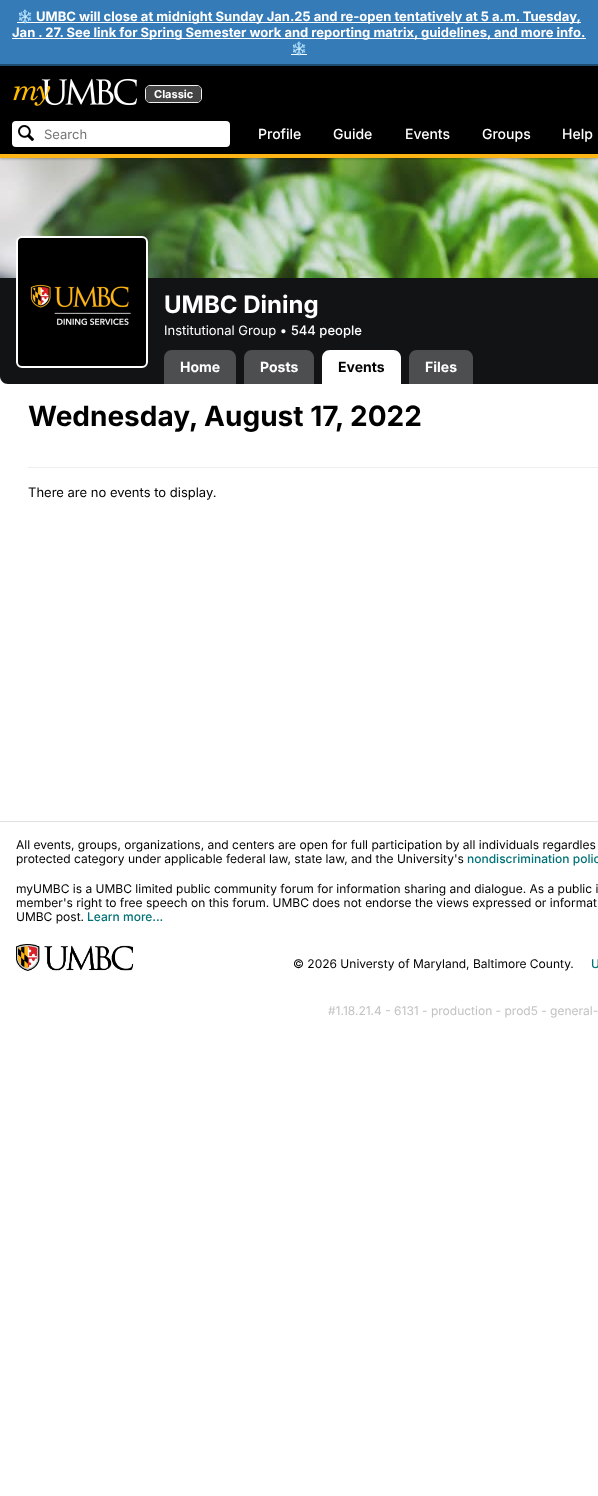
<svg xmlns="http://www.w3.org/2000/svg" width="598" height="1496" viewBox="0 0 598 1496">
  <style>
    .t1 { font: bold 13px Noto Color Emoji; fill: #fff; }
    .t2 { font: bold 13px Inter; fill: #fff; }
    .t3 { font: bold 11px Inter; fill: #fff; }
    .t4 { font: 13px Inter; fill: #757575; }
    .t5 { font: 500 14px Inter; fill: #fff; }
    .t6 { font: bold 24px Inter; fill: #fff; }
    .t7 { font: 13px Inter; fill: #fff; }
    .t8 { font: 500 13px Inter; fill: #fff; }
    .t9 { font: bold 14px Inter; fill: #fff; }
    .t10 { font: bold 14px Inter; fill: #000; }
    .t11 { font: bold 28px Inter; fill: #000; }
    .t12 { font: 13px Inter; fill: #000; }
    .t13 { font: 12px Inter; fill: #000; }
    .t14 { font: 500 12px Inter; fill: #007176; }
    .t15 { font: 12px Inter; fill: #c2c2c2; }
  </style>
  <rect width="100%" height="100%" fill="#fff"/>
  <rect x="0" y="0" width="598" height="64" fill="#357bb8"/>
  <rect x="0" y="64" width="598" height="2" fill="#204b70"/>
  <rect x="17" y="22" width="564" height="1" fill="#fff"/>
  <text x="17" y="21" class="t1">❄️</text>
  <text x="36" y="21" class="t2">UMBC will close at midnight Sunday Jan.25 and re-open tentatively at 5 a.m. Tuesday,</text>
  <rect x="12" y="38" width="574" height="1" fill="#fff"/>
  <text x="12" y="37" class="t2">Jan . 27. See link for Spring Semester work and reporting matrix, guidelines, and more info.</text>
  <rect x="291" y="54" width="16" height="1" fill="#fff"/>
  <text x="291" y="53" class="t1">❄️</text>
  <image x="0" y="158" width="598" height="120" href="images/3.png"/>
  <rect x="0" y="67" width="598" height="92" fill="#0000003d" filter="blur(1px)"/>
  <rect x="0" y="66" width="598" height="88" fill="#000"/>
  <rect x="0" y="154" width="598" height="4" fill="#fdb515"/>
  <image x="13" y="78" width="124" height="28" href="images/1.png"/>
  <rect x="145.5" y="85.5" width="56" height="17" rx="4.5" fill="none" stroke="#f0f0f0"/>
  <rect x="146" y="86" width="55" height="16" rx="4" fill="#444"/>
  <text x="154" y="98" class="t3">Classic</text>
  <rect x="12" y="121" width="218" height="26" rx="4" fill="#fff"/>
  <image x="18" y="125" width="16" height="16" href="images/2.png"/>
  <text x="44" y="139" class="t4">Search</text>
  <text x="258" y="139" class="t5">Profile</text>
  <text x="333" y="139" class="t5">Guide</text>
  <text x="405" y="139" class="t5">Events</text>
  <text x="482" y="139" class="t5">Groups</text>
  <text x="562" y="139" class="t5">Help</text>
  <rect x="0" y="278" width="598" height="66" fill="#111315"/>
  <path d="M0 344H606V376C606 380.5 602.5 384 598 384H8C3.5 384 0 380.5 0 376Z" fill="#111315"/>
  <image x="18" y="238" width="128" height="128" href="images/4.png"/>
  <rect x="17" y="237" width="130" height="130" rx="5" fill="none" stroke="#fff" stroke-width="2"/>
  <text x="164" y="313" class="t6">UMBC Dining</text>
  <text x="164" y="335" class="t7">Institutional Group •</text>
  <text x="291" y="335" class="t8">544 people</text>
  <path d="M172 350H228C232.5 350 236 353.5 236 358V384H164V358C164 353.5 167.5 350 172 350Z" fill="#4d4e50"/>
  <text x="180" y="372" class="t9">Home</text>
  <path d="M252 350H306C310.5 350 314 353.5 314 358V384H244V358C244 353.5 247.5 350 252 350Z" fill="#4d4e50"/>
  <text x="260" y="372" class="t9">Posts</text>
  <path d="M330 350H393C397.5 350 401 353.5 401 358V384H322V358C322 353.5 325.5 350 330 350Z" fill="#fff"/>
  <text x="338" y="372" class="t10">Events</text>
  <path d="M417 350H465C469.5 350 473 353.5 473 358V384H409V358C409 353.5 412.5 350 417 350Z" fill="#4d4e50"/>
  <text x="425" y="372" class="t9">Files</text>
  <text x="28" y="426" class="t11">Wednesday, August 17, 2022</text>
  <rect x="28" y="467" width="570" height="1" fill="#eee"/>
  <text x="28" y="497" class="t12">There are no events to display.</text>
  <rect x="0" y="821" width="598" height="1" fill="#e0e0e0"/>
  <text x="16" y="849" class="t13">All events, groups, organizations, and centers are open for full participation by all individuals regardles</text>
  <text x="16" y="863" class="t13">protected category under applicable federal law, state law, and the University's</text>
  <text x="467" y="863" class="t14">nondiscrimination polic</text>
  <text x="16" y="893" class="t13">myUMBC is a UMBC limited public community forum for information sharing and dialogue. As a public i</text>
  <text x="16" y="907" class="t13">member's right to free speech on this forum. UMBC does not endorse the views expressed or informat</text>
  <text x="16" y="921" class="t13">UMBC post.</text>
  <text x="87" y="921" class="t14">Learn more...</text>
  <image x="16" y="944" width="118" height="27" href="images/5.png"/>
  <text x="293" y="968" class="t13">© 2026 Universty of Maryland, Baltimore County.</text>
  <text x="591" y="968" class="t14">U</text>
  <text x="328" y="1015" class="t15">#1.18.21.4 - 6131 - production - prod5 - general-</text>
</svg>
